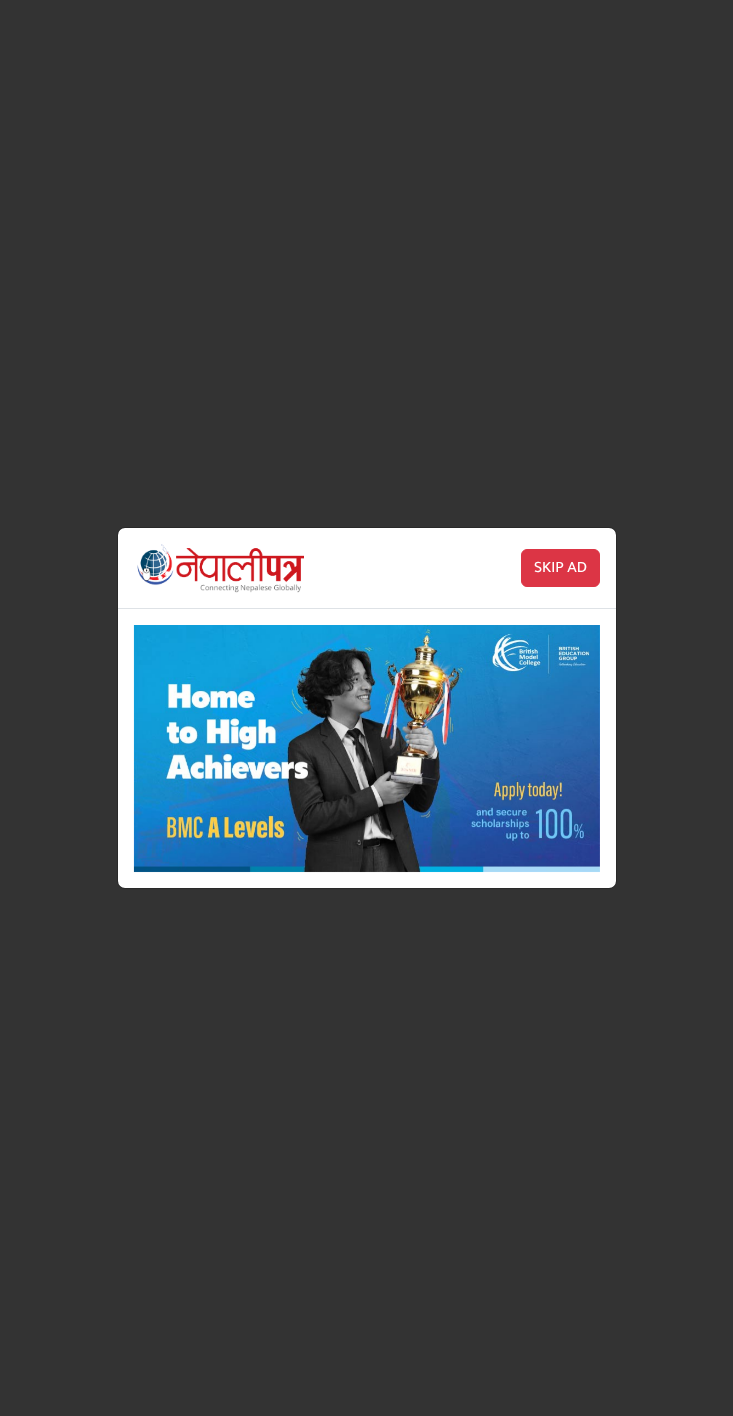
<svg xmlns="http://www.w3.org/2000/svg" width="733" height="1416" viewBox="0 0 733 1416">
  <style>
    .t1 { font: 16px Mukta; fill: #fff; }
  </style>
  <rect width="100%" height="100%" fill="#333"/>
  <rect x="118" y="528" width="498" height="360" rx="7" fill="#fff"/>
  <rect x="117.5" y="527.5" width="499" height="361" rx="7.5" fill="none" stroke="#0000002e"/>
  <rect x="118" y="608" width="498" height="1" fill="#dee2e6"/>
  <image x="137" y="544" width="167" height="49" href="images/1.png"/>
  <rect x="521.5" y="549.5" width="78" height="37" rx="5.5" fill="#dc3545" stroke="#dc3545"/>
  <text x="534" y="572" class="t1">SKIP AD</text>
  <image x="133" y="625" width="467" height="248" href="images/2.png"/>
</svg>
